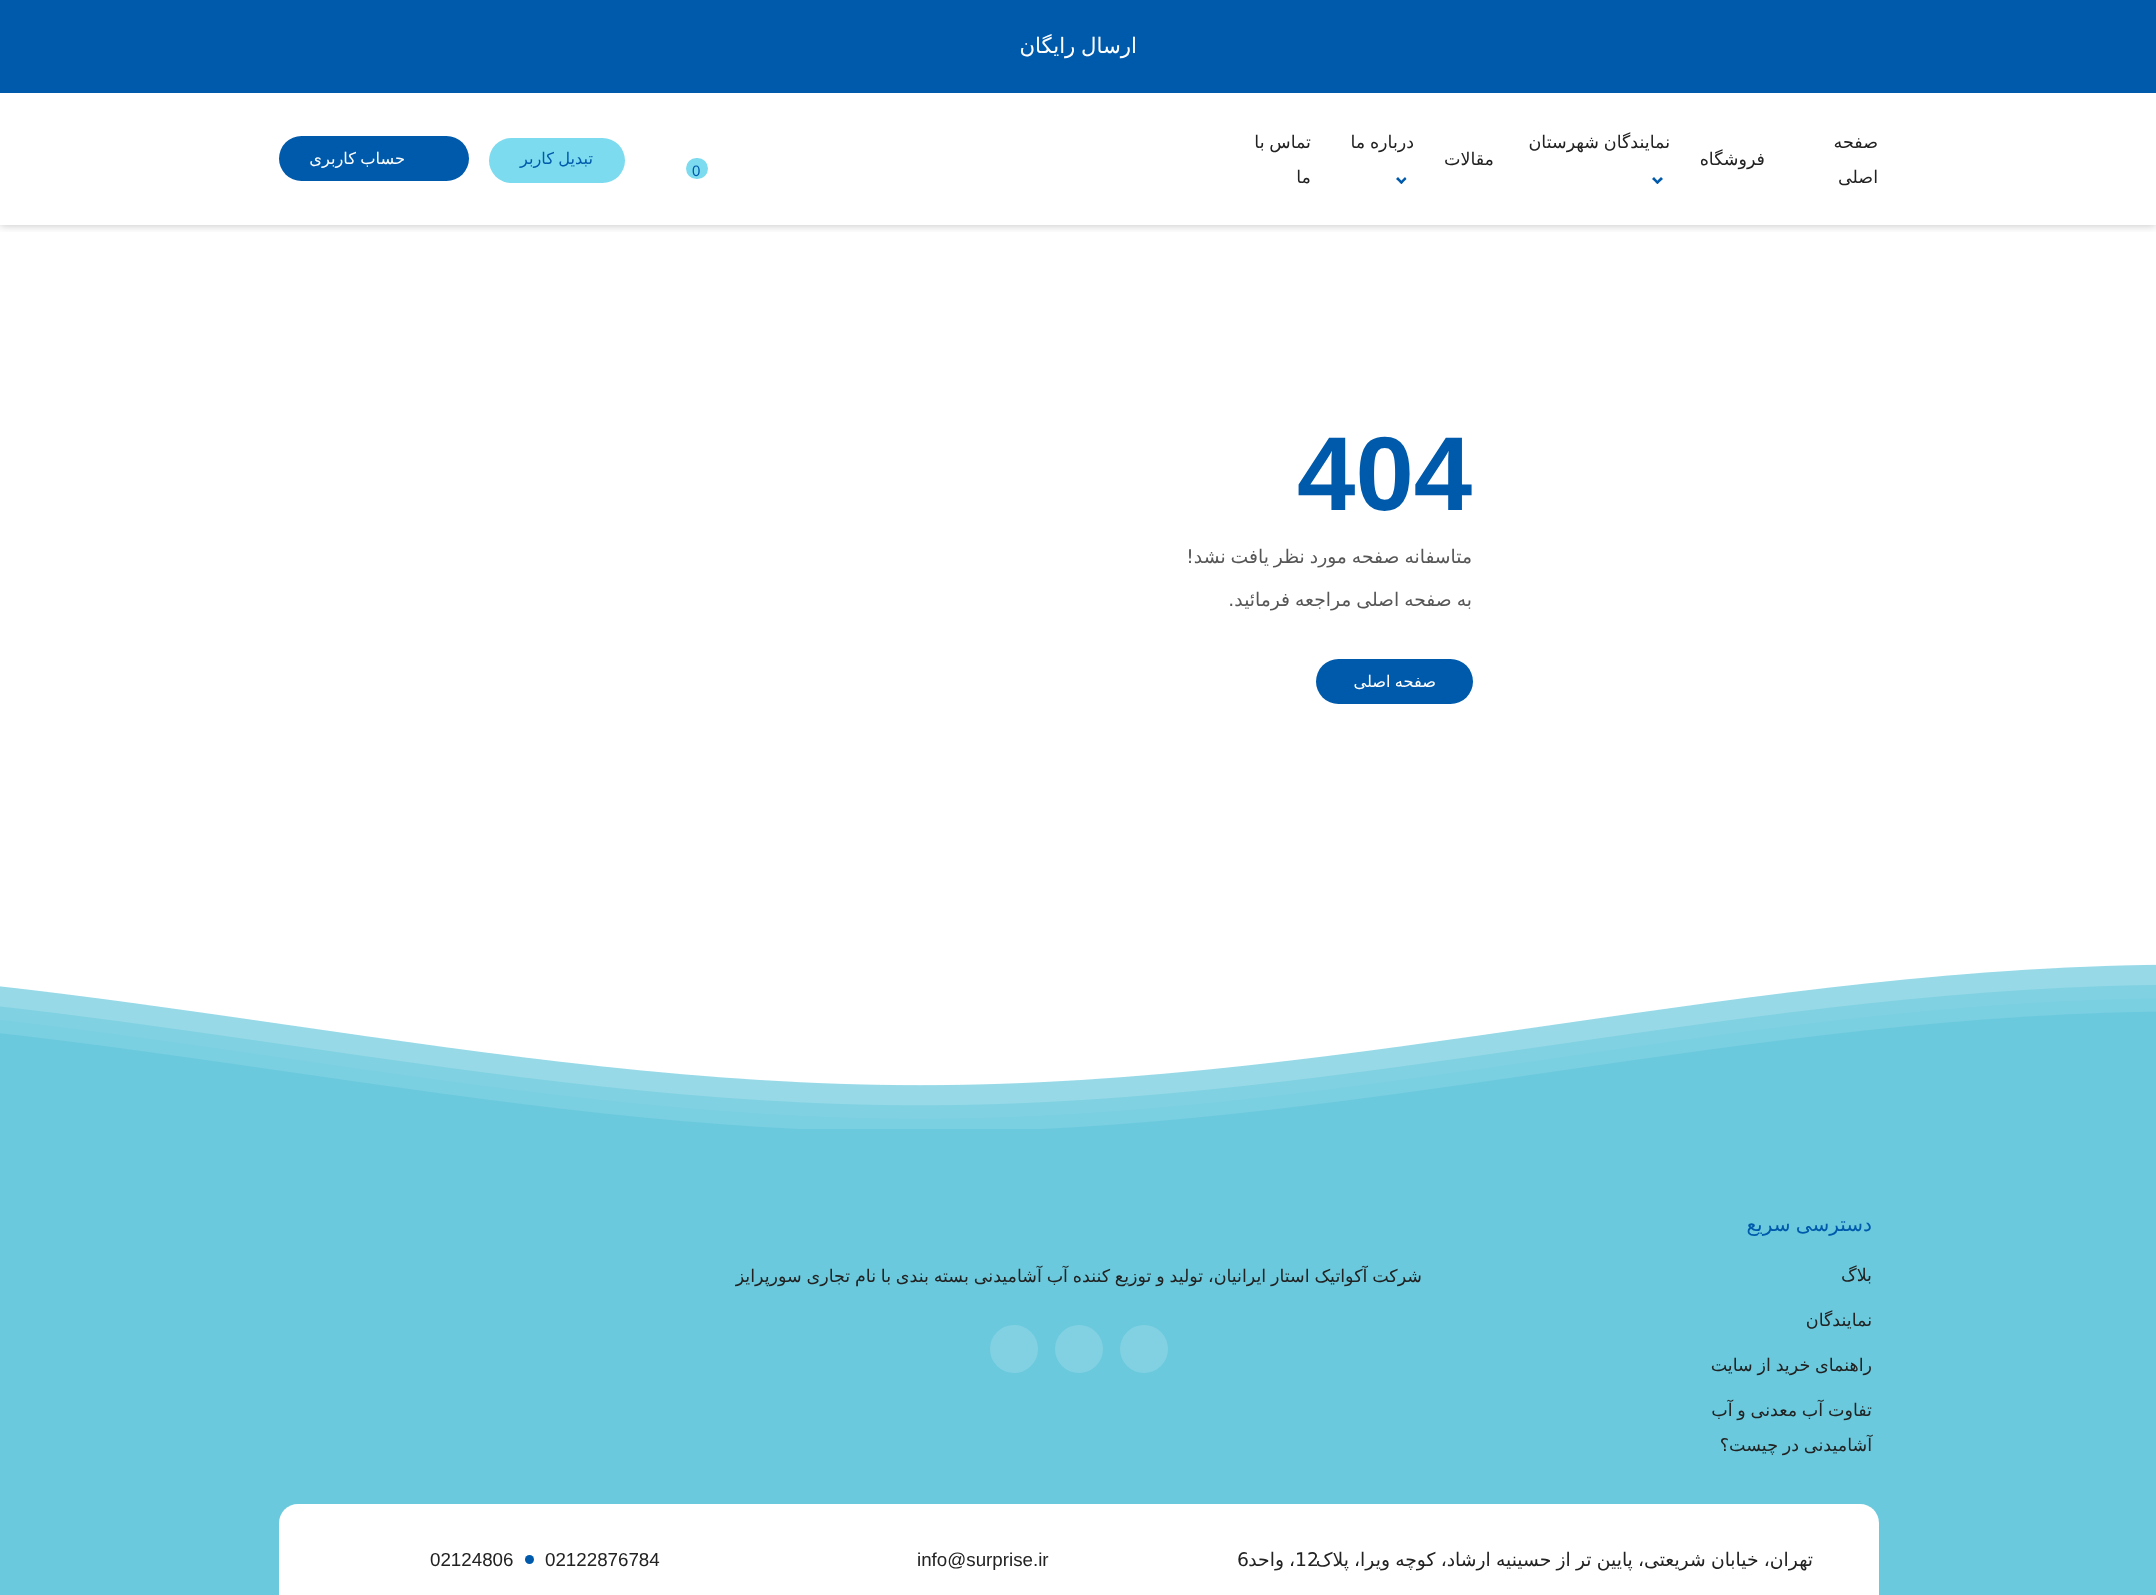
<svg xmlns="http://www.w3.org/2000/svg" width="2156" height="1595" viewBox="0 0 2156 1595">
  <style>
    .t1 { font: 21.25px DejaVu Sans; direction: rtl; fill: #fff; }
    .t2 { font: 17.5px DejaVu Sans; direction: rtl; fill: #222; }
    .t3 { font: 16.25px DejaVu Sans; direction: rtl; fill: #005aab; }
    .t4 { font: 16.25px DejaVu Sans; direction: rtl; fill: #fff; }
    .t5 { font: 15px Liberation Sans; fill: #005aab; }
    .t6 { font: bold 105px Liberation Sans; fill: #005aab; }
    .t7 { font: 18.75px DejaVu Sans; direction: rtl; fill: #575757; }
    .t8 { font: 20px DejaVu Sans; direction: rtl; fill: #005aab; }
    .t9 { font: 18.75px DejaVu Sans; fill: #222; }
    .t10 { font: 18.75px DejaVu Sans; direction: rtl; fill: #222; }
    .t11 { font: 18.75px Liberation Sans; fill: #222; }
  </style>
  <defs>
    <clipPath id="clip1"><rect x="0" y="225" width="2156" height="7"/></clipPath>
  </defs>
  <rect width="100%" height="100%" fill="#fff"/>
  <g clip-path="url(#clip1)">
    <rect x="0" y="0" width="2156" height="225" fill="#00000040" filter="blur(5px)"/>
  </g>
  <rect x="0" y="0" width="2156" height="93" fill="#005aab"/>
  <text x="1137" y="53" word-spacing="-1" class="t1">ارسال رایگان</text>
  <text x="1878" y="148" class="t2">صفحه</text>
  <text x="1878" y="183" class="t2">اصلی</text>
  <text x="1765" y="165" class="t2">فروشگاه</text>
  <text x="1670" y="148" word-spacing="-0.75" class="t2">نمایندگان شهرستان</text>
  <path d="M1661 177L1663 179L1657.5 184L1655.5 182.5Z" fill="#005aab"/>
  <path d="M1654 177L1659 182.5L1657.5 184L1652 179Z" fill="#005aab"/>
  <text x="1494" y="165" class="t2">مقالات</text>
  <text x="1414" y="148" word-spacing="-0.75" class="t2">درباره ما</text>
  <path d="M1405 177L1406.5 179L1401.5 184L1399.5 182.5Z" fill="#005aab"/>
  <path d="M1398 177L1403 182.5L1401.5 184L1396 179Z" fill="#005aab"/>
  <text x="1311" y="148" word-spacing="-0.75" class="t2">تماس با</text>
  <text x="1311" y="183" class="t2">ما</text>
  <rect x="489" y="138" width="136" height="45" rx="22.5" fill="#7cdbee"/>
  <text x="593" y="164" word-spacing="-1" class="t3">تبدیل کاربر</text>
  <rect x="279" y="136" width="190" height="45" rx="22.5" fill="#005aab"/>
  <text x="405" y="164" word-spacing="-1" class="t4">حساب کاربری</text>
  <rect x="686" y="158" width="22" height="21" rx="10.5" fill="#7cdbee"/>
  <text x="692" y="176" class="t5">0</text>
  <text x="1297" y="510" class="t6">404</text>
  <text x="1472" y="563" word-spacing="-1" class="t7">متاسفانه صفحه مورد نظر یافت نشد!</text>
  <text x="1472" y="606" word-spacing="-1" class="t7">به صفحه اصلی مراجعه فرمائید.</text>
  <rect x="1316" y="659" width="157" height="45" rx="22.5" fill="#005aab"/>
  <text x="1436" y="687" word-spacing="-1" class="t4">صفحه اصلی</text>
  <image x="0" y="964" width="2156" height="165" href="images/1.png"/>
  <rect x="0" y="1129" width="2156" height="466" fill="#6ac9dd"/>
  <text x="1872" y="1231" word-spacing="-1" class="t8">دسترسی سریع</text>
  <text x="1872" y="1281" class="t2">بلاگ</text>
  <text x="1872" y="1326" class="t2">نمایندگان</text>
  <text x="1872" y="1371" word-spacing="-0.75" class="t2">راهنمای خرید از سایت</text>
  <text x="1872" y="1416" word-spacing="-0.75" class="t2">تفاوت آب معدنی و آب</text>
  <text x="1872" y="1451" word-spacing="-0.75" class="t2">آشامیدنی در چیست؟</text>
  <text x="1422" y="1282" word-spacing="-0.75" class="t2">شرکت آکواتیک استار ایرانیان، تولید و توزیع کننده آب آشامیدنی بسته بندی با نام تجاری سورپرایز</text>
  <circle cx="1144" cy="1349" r="24" fill="#82d1e2"/>
  <circle cx="1079" cy="1349" r="24" fill="#82d1e2"/>
  <circle cx="1014" cy="1349" r="24" fill="#82d1e2"/>
  <rect x="279" y="1504" width="1600" height="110" rx="19" fill="#fff"/>
  <text x="1295" y="1566" class="t9">12</text>
  <text x="1813" y="1566" word-spacing="-0.75" class="t10">تهران، خیابان شریعتی، پایین تر از حسینیه ارشاد، کوچه ویرا، پلاک</text>
  <text x="1237" y="1566" class="t9">6</text>
  <text x="1295" y="1566" word-spacing="-1" class="t10">، واحد</text>
  <text x="917" y="1566" class="t11">info@surprise.ir</text>
  <text x="545" y="1566" class="t11">02122876784</text>
  <circle cx="529.5" cy="1559.5" r="4.5" fill="#005aab"/>
  <text x="430" y="1566" class="t11">02124806</text>
</svg>
